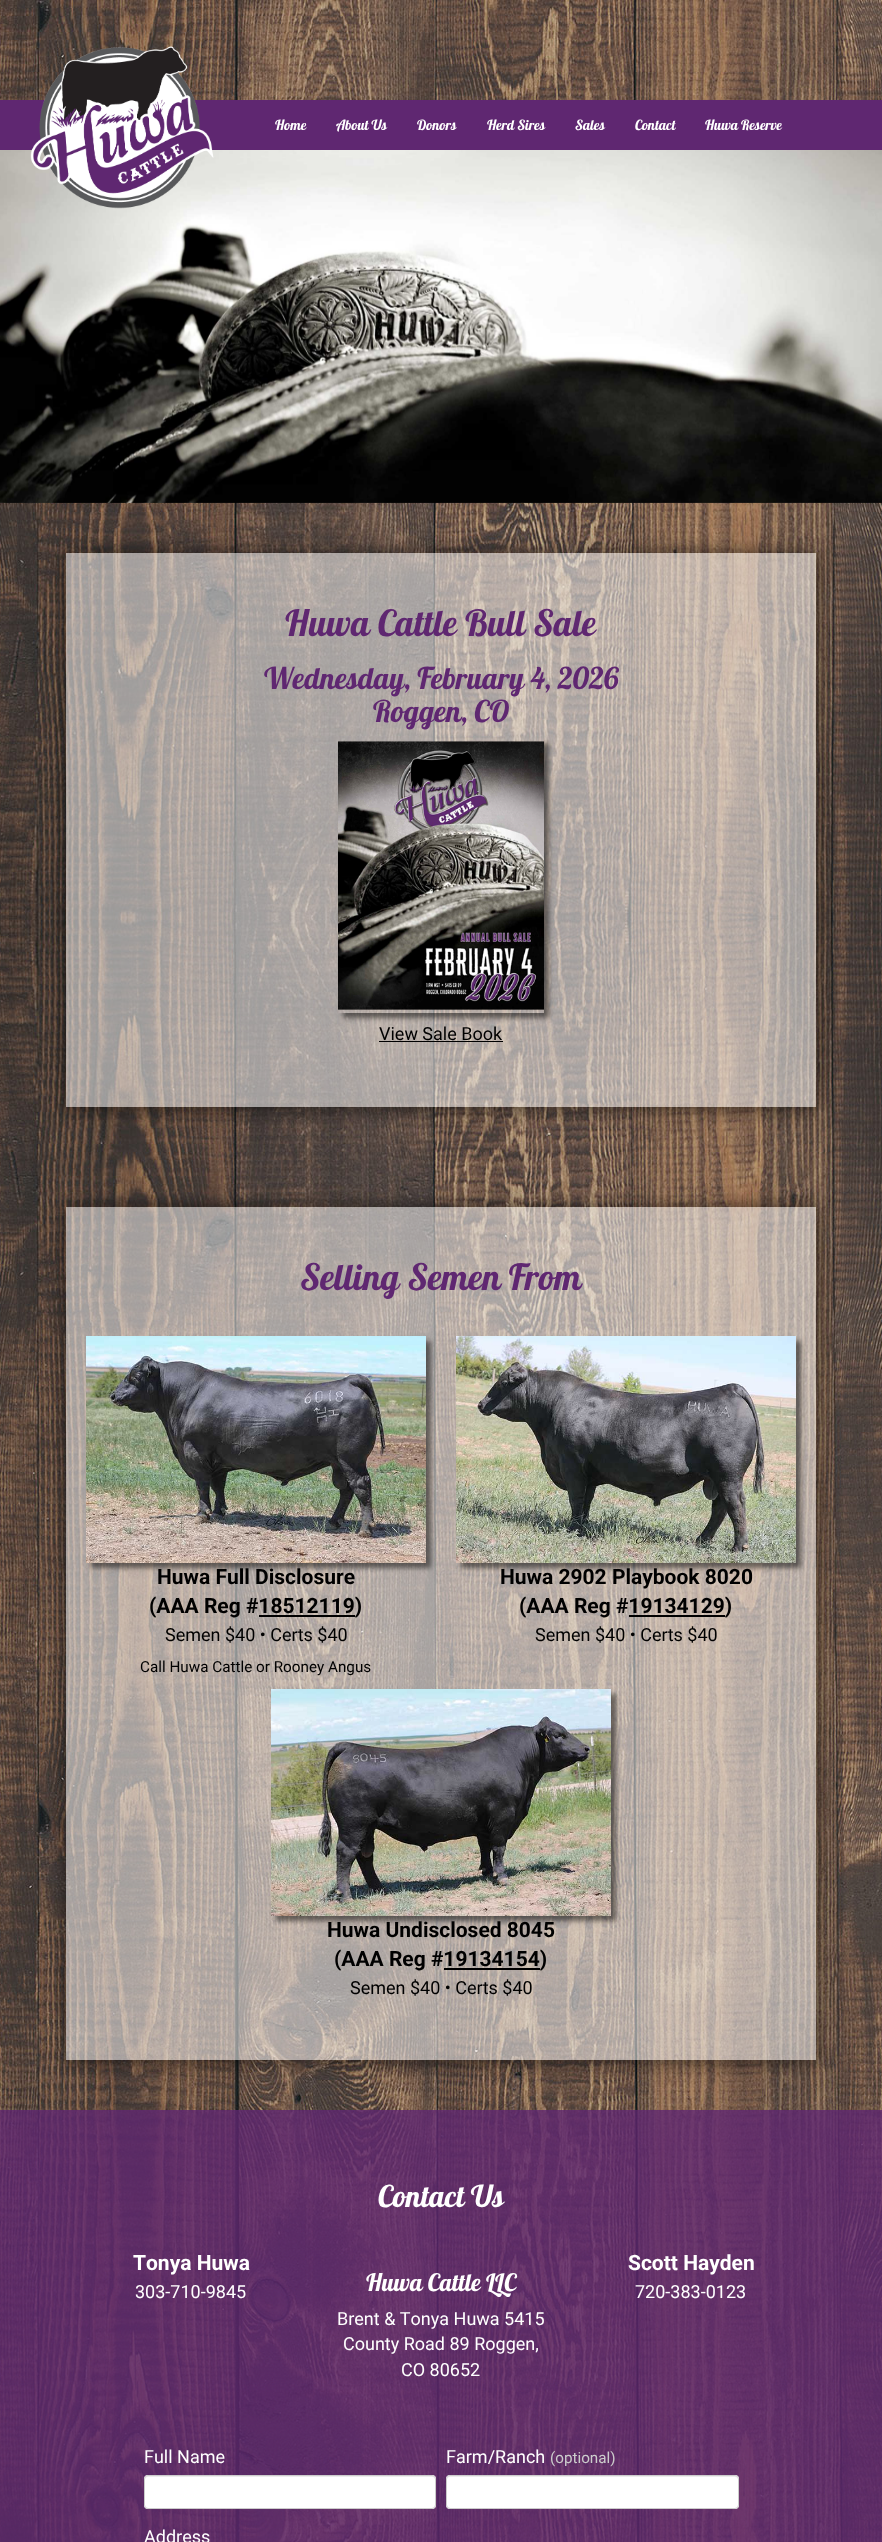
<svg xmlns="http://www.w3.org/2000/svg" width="882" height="2542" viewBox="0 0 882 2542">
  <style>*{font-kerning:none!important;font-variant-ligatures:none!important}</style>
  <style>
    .t1 { font: 14px Lobster; fill: #fff; }
    .t2 { font: 36px Lobster; fill: #5f2771; }
    .t3 { font: 30px Lobster; fill: #5f2771; }
    .t4 { font: 18px Roboto; fill: #000; }
    .t5 { font: bold 21px Roboto; fill: #000; }
    .t6 { font: 15.25px Roboto; fill: #000; }
    .t7 { font: 30px Lobster; fill: #fff; }
    .t8 { font: bold 21px Roboto; fill: #fff; }
    .t9 { font: 18px Roboto; fill: #fff; }
    .t10 { font: 24px Lobster; fill: #fff; }
    .t11 { font: 15.25px Roboto; fill: #ccc; }
  </style>
  <defs>
    <clipPath id="clip1"><path d="M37 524H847V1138H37ZM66 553H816V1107H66Z" clip-rule="evenodd"/></clipPath>
    <clipPath id="clip2"><path d="M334 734H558V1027H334ZM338 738H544V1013H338Z" clip-rule="evenodd"/></clipPath>
    <clipPath id="clip3"><path d="M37 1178H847V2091H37ZM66 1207H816V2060H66Z" clip-rule="evenodd"/></clipPath>
  </defs>
  <rect width="100%" height="100%" fill="#fff"/>
  <image x="0" y="0" width="882" height="2542" href="images/1.png"/>
  <rect x="0" y="100" width="882" height="50" fill="#5f2771"/>
  <image x="0" y="150" width="882" height="353" href="images/3.png"/>
  <image x="30" y="46" width="184" height="163" href="images/2.png"/>
  <text x="275" y="130" class="t1">Home</text>
  <text x="336" y="130" class="t1">About Us</text>
  <text x="417" y="130" class="t1">Donors</text>
  <text x="487" y="130" class="t1">Herd Sires</text>
  <text x="575" y="130" class="t1">Sales</text>
  <text x="635" y="130" class="t1">Contact</text>
  <text x="705" y="130" class="t1">Huwa Reserve</text>
  <g clip-path="url(#clip1)">
    <rect x="65" y="552" width="754" height="558" fill="#0000008c" filter="blur(9px)"/>
  </g>
  <rect x="66" y="553" width="750" height="554" fill="#ffffff85"/>
  <text x="285" y="636" class="t2">Huwa Cattle Bull Sale</text>
  <text x="264" y="689" class="t3">Wednesday, February 4, 2026</text>
  <text x="373" y="722" class="t3">Roggen, CO</text>
  <g clip-path="url(#clip2)">
    <rect x="343" y="743" width="206" height="275" fill="#00000080" filter="blur(2.5px)"/>
  </g>
  <image x="338" y="741" width="206" height="269" href="images/4.png"/>
  <text x="379" y="1040" class="t4">View Sale Book</text>
  <rect x="379" y="1041" width="124" height="1" fill="#000"/>
  <g clip-path="url(#clip3)">
    <rect x="65" y="1206" width="754" height="857" fill="#0000008c" filter="blur(9px)"/>
  </g>
  <rect x="66" y="1207" width="750" height="853" fill="#ffffff85"/>
  <text x="300" y="1290" class="t2">Selling Semen From</text>
  <rect x="91" y="1341" width="340" height="227" fill="#00000080" filter="blur(2.5px)"/>
  <image x="86" y="1336" width="340" height="227" href="images/5.png"/>
  <text x="157" y="1584" class="t5">Huwa Full Disclosure</text>
  <text x="149" y="1613" class="t5">(AAA Reg #18512119)</text>
  <rect x="259" y="1615" width="96" height="2" fill="#000"/>
  <text x="165" y="1641" class="t4">Semen $40 • Certs $40</text>
  <text x="140" y="1672" class="t6">Call Huwa Cattle or Rooney Angus</text>
  <rect x="461" y="1341" width="340" height="227" fill="#00000080" filter="blur(2.5px)"/>
  <image x="456" y="1336" width="340" height="227" href="images/6.png"/>
  <text x="500" y="1584" class="t5">Huwa 2902 Playbook 8020</text>
  <text x="519" y="1613" class="t5">(AAA Reg #19134129)</text>
  <rect x="629" y="1615" width="96" height="2" fill="#000"/>
  <text x="535" y="1641" class="t4">Semen $40 • Certs $40</text>
  <rect x="276" y="1694" width="340" height="227" fill="#00000080" filter="blur(2.5px)"/>
  <image x="271" y="1689" width="340" height="227" href="images/7.png"/>
  <text x="327" y="1937" class="t5">Huwa Undisclosed 8045</text>
  <text x="334" y="1966" class="t5">(AAA Reg #19134154)</text>
  <rect x="444" y="1968" width="96" height="2" fill="#000"/>
  <text x="350" y="1994" class="t4">Semen $40 • Certs $40</text>
  <rect x="0" y="2110" width="882" height="432" fill="#5f2771cc"/>
  <text x="378" y="2207" class="t7">Contact Us</text>
  <text x="133" y="2270" class="t8">Tonya Huwa</text>
  <text x="135" y="2298" class="t9">303-710-9845</text>
  <text x="366" y="2291" class="t10">Huwa Cattle LLC</text>
  <text x="337" y="2325" class="t9">Brent &amp; Tonya Huwa 5415</text>
  <text x="343" y="2350" class="t9">County Road 89 Roggen,</text>
  <text x="401" y="2376" class="t9">CO 80652</text>
  <text x="628" y="2270" class="t8">Scott Hayden</text>
  <text x="635" y="2298" class="t9">720-383-0123</text>
  <text x="144" y="2463" class="t9">Full Name</text>
  <rect x="144" y="2475" width="292" height="34" rx="4" fill="#fff"/>
  <path d="M148 2477H432C434 2477 435 2478 435 2480C435 2478 434 2476 432 2476H148C146 2476 145 2478 145 2480C145 2478 146 2477 148 2477Z" fill="#ececec"/>
  <rect x="144.5" y="2475.5" width="291" height="33" rx="3.5" fill="none" stroke="#ccc"/>
  <text x="446" y="2463" class="t9">Farm/Ranch</text>
  <text x="550" y="2463" class="t11">(optional)</text>
  <rect x="446" y="2475" width="293" height="34" rx="4" fill="#fff"/>
  <path d="M450 2477H735C737 2477 738 2478 738 2480C738 2478 737 2476 735 2476H450C448 2476 447 2478 447 2480C447 2478 448 2477 450 2477Z" fill="#ececec"/>
  <rect x="446.5" y="2475.5" width="292" height="33" rx="3.5" fill="none" stroke="#ccc"/>
  <text x="144" y="2543" class="t9">Address</text>
</svg>
